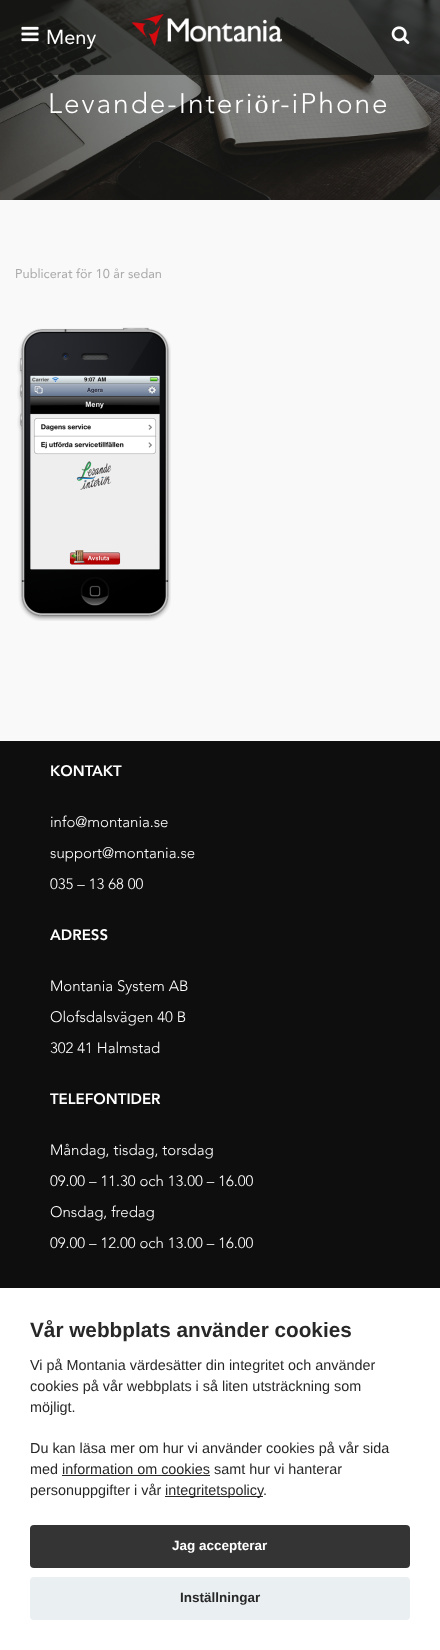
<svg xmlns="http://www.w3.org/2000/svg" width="440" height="1650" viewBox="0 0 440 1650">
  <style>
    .t1 { font: 20px Avenir; fill: #fff; }
    .t2 { font: 300 28px Avenir; letter-spacing: 2px; fill: #fff; }
    .t3 { font: 12.75px Avenir; fill: #aaa; }
    .t4 { font: 900 15px Avenir; fill: #fff; }
    .t5 { font: 300 15px Avenir; fill: #fff; }
    .t6 { font: bold 20.75px Liberation Sans; fill: #282828; }
    .t7 { font: 14.4px Liberation Sans; fill: #282828; }
    .t8 { font: bold 13.5px Liberation Sans; fill: #fff; }
    .t9 { font: bold 13.5px Liberation Sans; fill: #282828; }
  </style>
  <rect width="100%" height="100%" fill="#fff"/>
  <image x="0" y="0" width="440" height="200" href="images/4.png"/>
  <rect x="0" y="0" width="440" height="75" fill="#16181499"/>
  <image x="21" y="26" width="18" height="16" href="images/1.png"/>
  <text x="46" y="44" class="t1">Meny</text>
  <image x="132" y="14" width="150" height="32" href="images/2.png"/>
  <image x="391" y="26" width="19" height="18" href="images/3.png"/>
  <text x="48" y="113" class="t2">Levande-Interiör-iPhone</text>
  <rect x="0" y="200" width="440" height="541" fill="#f9f9f9"/>
  <text x="15" y="278" class="t3">Publicerat för 10 år sedan</text>
  <image x="17" y="327" width="154" height="294" href="images/5.png"/>
  <rect x="0" y="741" width="440" height="547" fill="#0e0e0e"/>
  <text x="50" y="776" class="t4">KONTAKT</text>
  <text x="50" y="827" class="t5">info@montania.se</text>
  <text x="50" y="858" class="t5">support@montania.se</text>
  <text x="50" y="889" class="t5">035 – 13 68 00</text>
  <text x="50" y="940" class="t4">ADRESS</text>
  <text x="50" y="991" class="t5">Montania System AB</text>
  <text x="50" y="1022" class="t5">Olofsdalsvägen 40 B</text>
  <text x="50" y="1053" class="t5">302 41 Halmstad</text>
  <text x="50" y="1104" class="t4">TELEFONTIDER</text>
  <text x="50" y="1155" class="t5">Måndag, tisdag, torsdag</text>
  <text x="50" y="1186" class="t5">09.00 – 11.30 och 13.00 – 16.00</text>
  <text x="50" y="1217" class="t5">Onsdag, fredag</text>
  <text x="50" y="1248" class="t5">09.00 – 12.00 och 13.00 – 16.00</text>
  <text x="30" y="1337" class="t6">Vår webbplats använder cookies</text>
  <text x="30" y="1370" class="t7">Vi på Montania värdesätter din integritet och använder</text>
  <text x="30" y="1391" class="t7">cookies på vår webbplats i så liten utsträckning som</text>
  <text x="30" y="1412" class="t7">möjligt.</text>
  <text x="30" y="1453" class="t7">Du kan läsa mer om hur vi använder cookies på vår sida</text>
  <text x="30" y="1474" class="t7">med information om cookies samt hur vi hanterar</text>
  <rect x="62" y="1475" width="148" height="1" fill="#282828"/>
  <text x="30" y="1495" class="t7">personuppgifter i vår</text>
  <rect x="165" y="1496" width="98" height="1" fill="#282828"/>
  <text x="165" y="1495" class="t7">integritetspolicy</text>
  <text x="263" y="1495" class="t7">.</text>
  <rect x="30" y="1525" width="380" height="43" rx="4" fill="#343434"/>
  <text x="172" y="1550" class="t8">Jag accepterar</text>
  <rect x="30" y="1577" width="380" height="43" rx="4" fill="#eaeff2"/>
  <text x="180" y="1602" class="t9">Inställningar</text>
</svg>
